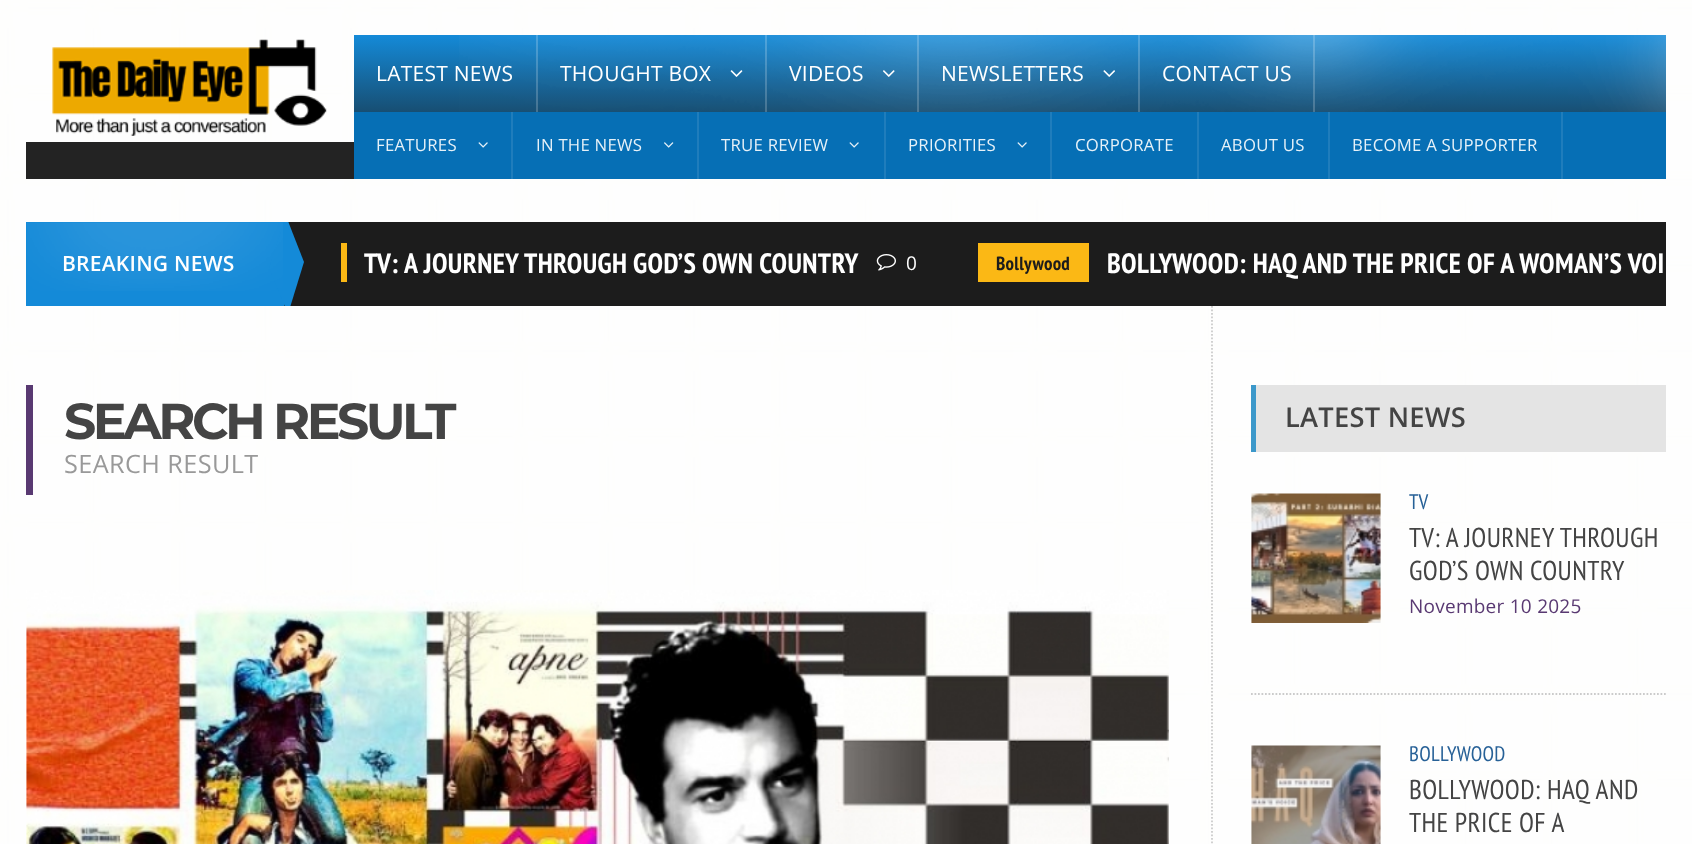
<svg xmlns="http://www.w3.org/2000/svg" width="1692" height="844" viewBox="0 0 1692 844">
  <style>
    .t1 { font: 21px Open Sans; letter-spacing: 0.25px; fill: #fff; }
    .t2 { font: 16.75px Open Sans; letter-spacing: 0.25px; fill: #e6f1f8; }
    .t3 { font: 600 21px Open Sans; letter-spacing: 0.25px; fill: #fff; }
    .t4 { font: bold 28px PT Sans Narrow; letter-spacing: 0.4px; fill: #fff; }
    .t5 { font: 19px Open Sans; letter-spacing: 0.25px; fill: #fff; }
    .t6 { font: bold 19px PT Sans Narrow; letter-spacing: 0.25px; fill: #1c1c1c; }
    .t7 { font: bold 50.5px Montserrat; letter-spacing: -3.5px; fill: #444; }
    .t8 { font: 25.25px Open Sans; letter-spacing: 0.4px; fill: #999; }
    .t9 { font: 600 27.25px Open Sans; letter-spacing: 0.25px; fill: #444; }
    .t10 { font: 21px PT Sans Narrow; letter-spacing: 0.25px; fill: #276197; }
    .t11 { font: 27.25px PT Sans Narrow; letter-spacing: 0.4px; fill: #444; }
    .t12 { font: 19px Open Sans; letter-spacing: 0.25px; fill: #593972; }
  </style>
  <defs>
    <linearGradient id="g1" gradientUnits="userSpaceOnUse" x1="1010" y1="35" x2="1010" y2="179"><stop offset="0" stop-color="#148ad8"/><stop offset="1" stop-color="#1a1a1a"/></linearGradient>
    <clipPath id="clip1"><rect x="26" y="222" width="1640" height="84"/></clipPath>
  </defs>
  <rect width="100%" height="100%" fill="#fff"/>
  <image x="0" y="0" width="1692" height="844" href="images/1.png"/>
  <rect x="26" y="142" width="328" height="37" fill="#232323"/>
  <image x="52" y="39" width="275" height="97" href="images/2.png"/>
  <rect x="354" y="35" width="1312" height="77" fill="url(#g1)"/>
  <image x="459" y="35" width="1207" height="77" href="images/3.png"/>
  <rect x="536" y="35" width="2" height="77" fill="#ffffff33"/>
  <text x="376" y="81" class="t1">LATEST NEWS</text>
  <rect x="765" y="35" width="2" height="77" fill="#ffffff33"/>
  <text x="560" y="81" class="t1">THOUGHT BOX</text>
  <image x="730" y="70" width="13" height="7" href="images/4.png"/>
  <rect x="917" y="35" width="2" height="77" fill="#ffffff33"/>
  <text x="789" y="81" class="t1">VIDEOS</text>
  <image x="883" y="70" width="12" height="7" href="images/5.png"/>
  <rect x="1138" y="35" width="2" height="77" fill="#ffffff33"/>
  <text x="941" y="81" class="t1">NEWSLETTERS</text>
  <image x="1103" y="70" width="12" height="7" href="images/6.png"/>
  <rect x="1313" y="35" width="2" height="77" fill="#ffffff33"/>
  <text x="1162" y="81" class="t1">CONTACT US</text>
  <rect x="354" y="112" width="1312" height="67" fill="#066fb5"/>
  <rect x="511" y="112" width="2" height="67" fill="#1f7dbc"/>
  <text x="376" y="151" class="t2">FEATURES</text>
  <image x="478" y="142" width="10" height="6" href="images/7.png"/>
  <rect x="697" y="112" width="2" height="67" fill="#1f7dbc"/>
  <text x="536" y="151" class="t2">IN THE NEWS</text>
  <image x="664" y="142" width="10" height="6" href="images/8.png"/>
  <rect x="884" y="112" width="2" height="67" fill="#1f7dbc"/>
  <text x="721" y="151" class="t2">TRUE REVIEW</text>
  <image x="849" y="142" width="10" height="6" href="images/7.png"/>
  <rect x="1050" y="112" width="2" height="67" fill="#1f7dbc"/>
  <text x="908" y="151" class="t2">PRIORITIES</text>
  <image x="1017" y="142" width="10" height="6" href="images/7.png"/>
  <rect x="1197" y="112" width="2" height="67" fill="#1f7dbc"/>
  <text x="1075" y="151" class="t2">CORPORATE</text>
  <rect x="1328" y="112" width="2" height="67" fill="#1f7dbc"/>
  <text x="1221" y="151" class="t2">ABOUT US</text>
  <rect x="1561" y="112" width="2" height="67" fill="#1f7dbc"/>
  <text x="1352" y="151" class="t2">BECOME A SUPPORTER</text>
  <path d="M1212 222V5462" fill="none" stroke="#ccc" stroke-width="1.8" stroke-dasharray="1.75 1.75"/>
  <rect x="284" y="222" width="1382" height="84" fill="#1c1c1c"/>
  <rect x="26" y="222" width="258" height="84" fill="#148ad8"/>
  <g clip-path="url(#clip1)">
    <path d="M286 216L304 262L288 314L269 268Z" fill="#148ad8"/>
  </g>
  <text x="62" y="271" class="t3">BREAKING NEWS</text>
  <image x="27" y="222" width="256" height="69" href="images/9.png"/>
  <rect x="341" y="243" width="6" height="39" fill="#fbb815"/>
  <text x="364" y="273" class="t4">TV: A JOURNEY THROUGH GOD’S OWN COUNTRY</text>
  <image x="876" y="254" width="20" height="17" href="images/10.png"/>
  <text x="906" y="270" class="t5">0</text>
  <rect x="978" y="243" width="111" height="39" fill="#fbb815"/>
  <text x="996" y="270" class="t6">Bollywood</text>
  <text x="1107" y="273" class="t4">BOLLYWOOD: HAQ AND THE PRICE OF A WOMAN’S VOI</text>
  <rect x="26" y="385" width="7" height="110" fill="#593972"/>
  <text x="64" y="439" class="t7">SEARCH RESULT</text>
  <text x="64" y="473" class="t8">SEARCH RESULT</text>
  <image x="26" y="590" width="1143" height="254" href="images/11.png"/>
  <rect x="1256" y="385" width="410" height="67" fill="#e4e4e4"/>
  <rect x="1251" y="385" width="5" height="67" fill="#3c98ca"/>
  <text x="1285" y="427" class="t9">LATEST NEWS</text>
  <path d="M1251 694H1666" fill="none" stroke="#cbcbcb" stroke-width="1.8" stroke-dasharray="1.75 1.75"/>
  <image x="1251" y="493" width="130" height="130" href="images/12.png"/>
  <text x="1409" y="509" class="t10">TV</text>
  <text x="1409" y="547" class="t11">TV: A JOURNEY THROUGH</text>
  <text x="1409" y="580" class="t11">GOD’S OWN COUNTRY</text>
  <text x="1409" y="613" class="t12">November 10 2025</text>
  <image x="1251" y="745" width="130" height="99" href="images/13.png"/>
  <text x="1409" y="761" class="t10">BOLLYWOOD</text>
  <text x="1409" y="799" class="t11">BOLLYWOOD: HAQ AND</text>
  <text x="1409" y="832" class="t11">THE PRICE OF A</text>
</svg>
